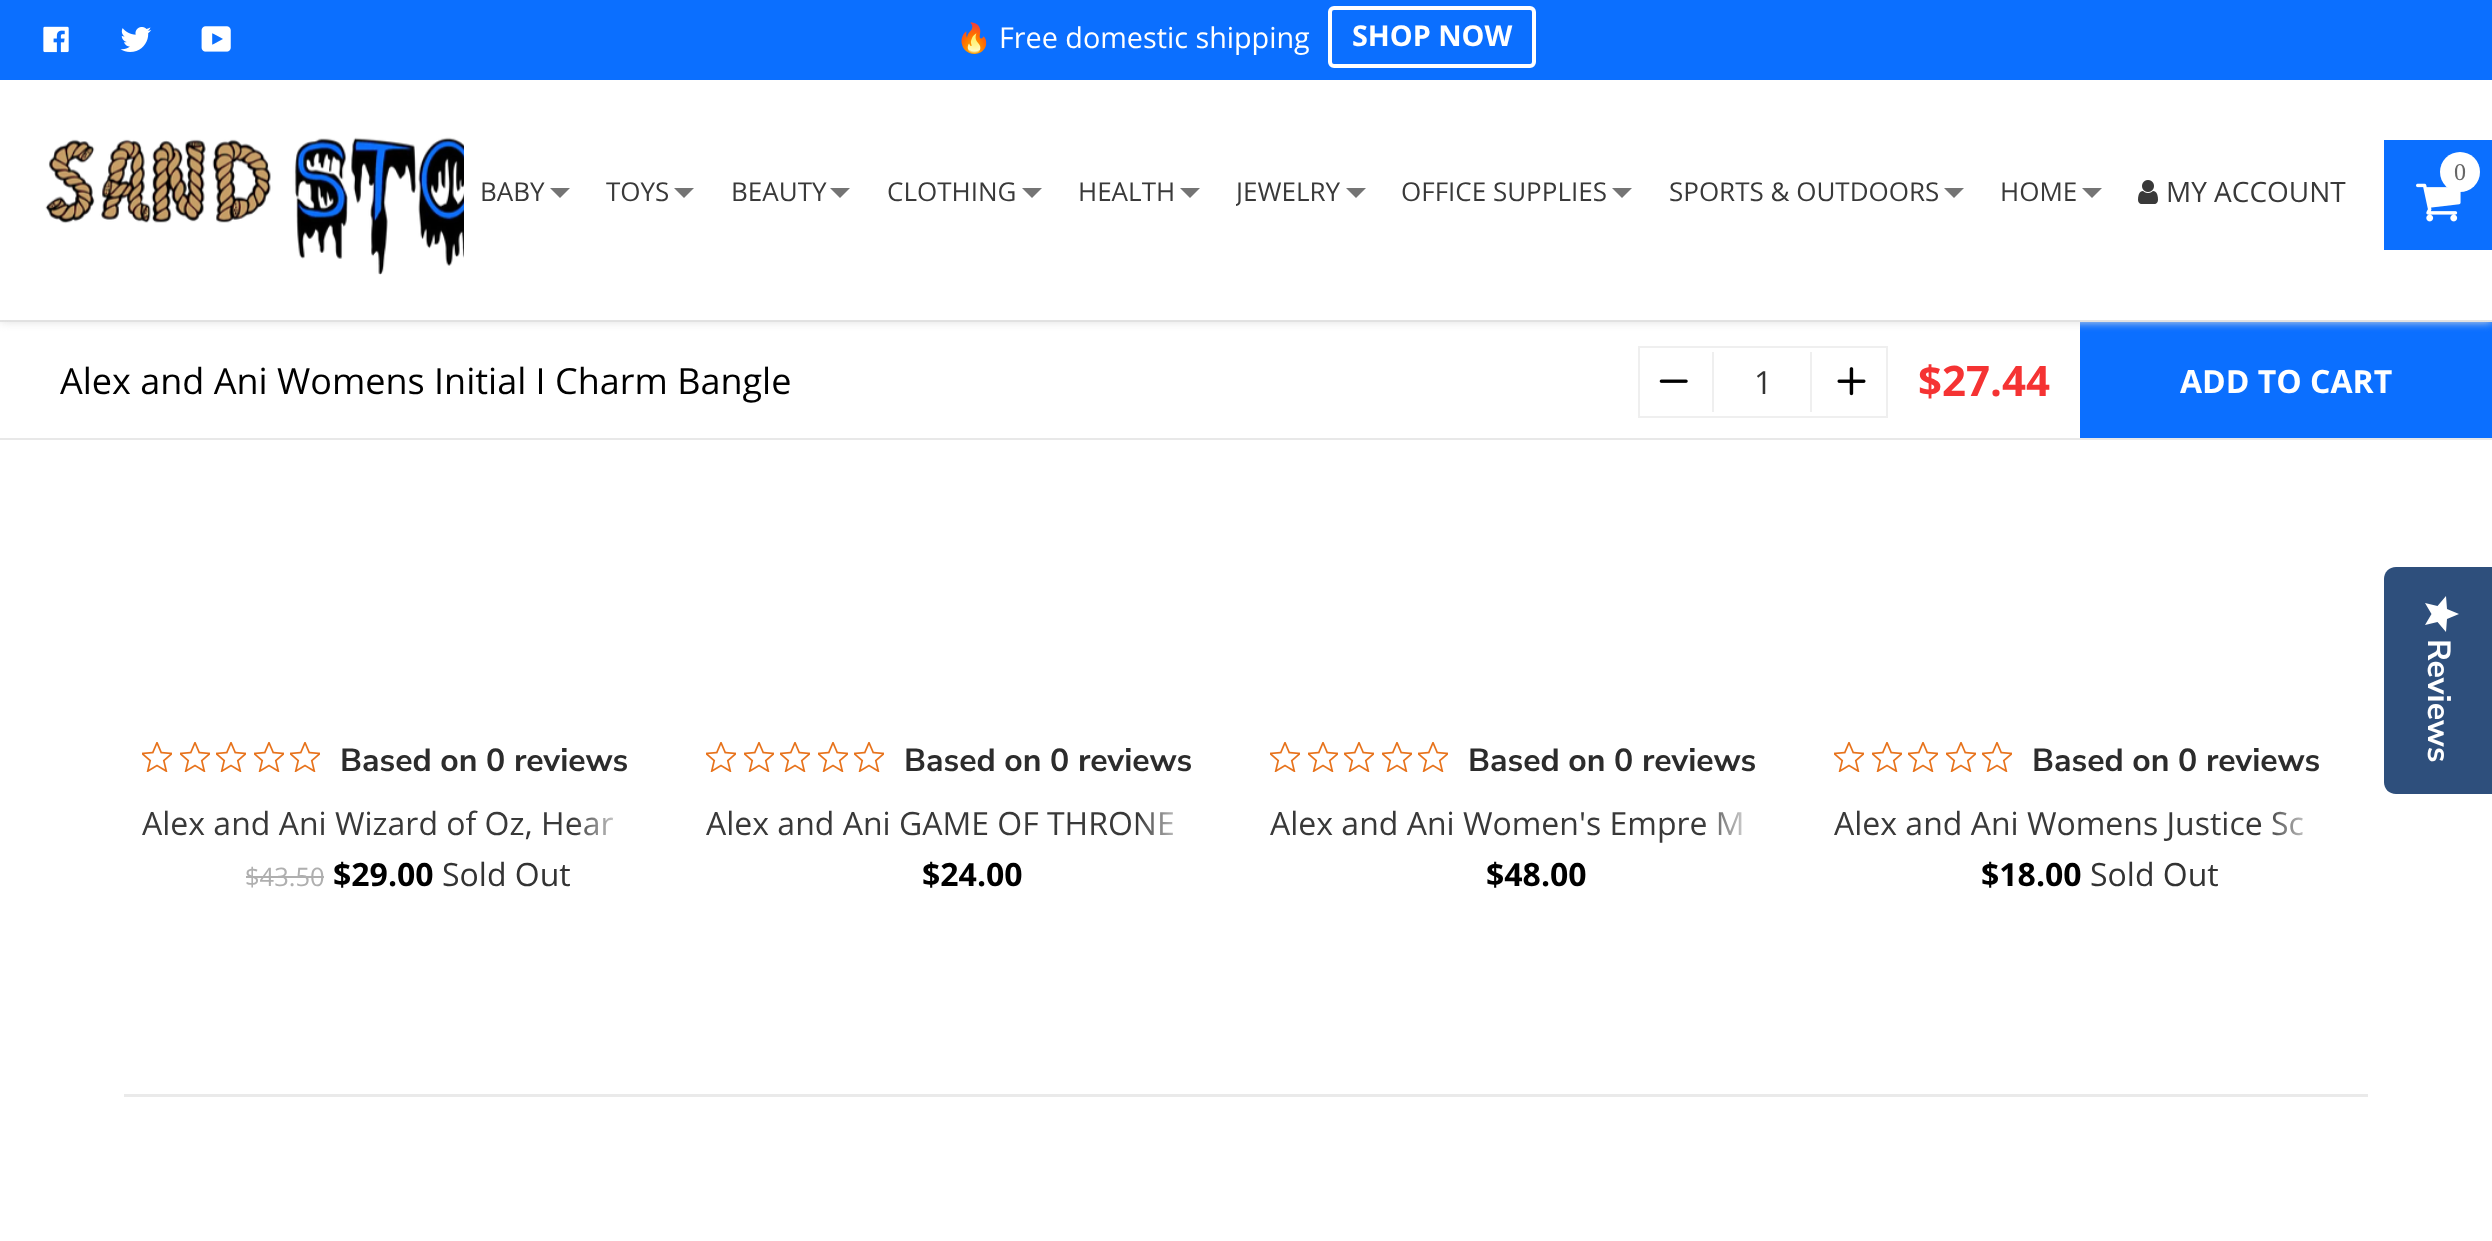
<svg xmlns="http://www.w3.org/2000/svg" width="2492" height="1241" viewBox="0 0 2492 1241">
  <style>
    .t1 { font: 28.75px Noto Color Emoji; fill: #fff; }
    .t2 { font: 28.75px Open Sans; fill: #fff; }
    .t3 { font: bold 28.75px Open Sans; fill: #fff; }
    .t4 { font: 24px Liberation Serif; fill: #666; }
    .t5 { font: 26px Open Sans; fill: #393939; }
    .t6 { font: 28px Open Sans; fill: #393939; }
    .t7 { font: 36px Open Sans; fill: #000; }
    .t8 { font: 32px Open Sans; fill: #333; }
    .t9 { font: bold 42px Open Sans; fill: #f53333; }
    .t10 { font: bold 32px Open Sans; fill: #fff; }
    .t11 { font: 200 32px Nunito Sans; fill: #2c2c2c; }
    .t12 { font: 32px Open Sans; fill: #393939; }
    .t13 { font: 25.5px Open Sans; fill: #afafaf; }
    .t14 { font: bold 32px Open Sans; fill: #000; }
    .t15 { font: 200 32px Nunito Sans; fill: #fff; }
  </style>
  <defs>
    <clipPath id="clip1"><rect x="1236" y="140" width="134" height="100"/></clipPath>
    <linearGradient id="g1" gradientUnits="userSpaceOnUse" x1="574" y1="825" x2="674" y2="825"><stop offset="0" stop-color="#fff" stop-opacity="0"/><stop offset="0.56" stop-color="#fff"/><stop offset="1" stop-color="#fff"/></linearGradient>
    <linearGradient id="g2" gradientUnits="userSpaceOnUse" x1="1138" y1="825" x2="1238" y2="825"><stop offset="0" stop-color="#fff" stop-opacity="0"/><stop offset="0.56" stop-color="#fff"/><stop offset="1" stop-color="#fff"/></linearGradient>
    <linearGradient id="g3" gradientUnits="userSpaceOnUse" x1="1702" y1="825" x2="1802" y2="825"><stop offset="0" stop-color="#fff" stop-opacity="0"/><stop offset="0.56" stop-color="#fff"/><stop offset="1" stop-color="#fff"/></linearGradient>
    <linearGradient id="g4" gradientUnits="userSpaceOnUse" x1="2266" y1="825" x2="2366" y2="825"><stop offset="0" stop-color="#fff" stop-opacity="0"/><stop offset="0.56" stop-color="#fff"/><stop offset="1" stop-color="#fff"/></linearGradient>
    <linearGradient id="g5" gradientUnits="userSpaceOnUse" x1="2459" y1="596" x2="2459" y2="632"><stop offset="1" stop-color="#fff"/><stop offset="1" stop-color="#eaeaea"/></linearGradient>
  </defs>
  <rect width="100%" height="100%" fill="#fff"/>
  <rect x="0" y="320" width="2492" height="2" fill="#e3e3e3"/>
  <rect x="2080" y="322" width="412" height="116" fill="#0b6fff"/>
  <rect x="0" y="82" width="2492" height="240" fill="#e0e0e0" filter="blur(5px)"/>
  <rect x="0" y="0" width="2492" height="80" fill="#0b6fff"/>
  <image x="43" y="26" width="26" height="27" href="images/1.png"/>
  <image x="120" y="27" width="32" height="25" href="images/2.png"/>
  <image x="201" y="26" width="30" height="26" href="images/3.png"/>
  <text x="956" y="48" class="t1">🔥</text>
  <text x="999" y="48" class="t2">Free domestic shipping</text>
  <rect x="1330" y="8" width="204" height="58" rx="4" fill="none" stroke="#fff" stroke-width="4"/>
  <text x="1352" y="46" class="t3">SHOP NOW</text>
  <rect x="0" y="80" width="2492" height="240" fill="#fff"/>
  <image x="45" y="137" width="419" height="138" href="images/4.png"/>
  <rect x="2384" y="140" width="108" height="110" fill="#0b6fff"/>
  <image x="2416" y="183" width="45" height="39" href="images/5.png"/>
  <circle cx="2460" cy="172" r="20" fill="#fff"/>
  <text x="2454" y="180" class="t4">0</text>
  <text x="480" y="201" class="t5">BABY</text>
  <path d="M550 188H570L560 198Z" fill="#747474"/>
  <text x="606" y="201" class="t5">TOYS</text>
  <path d="M674 188H694L684 198Z" fill="#747474"/>
  <text x="731" y="201" class="t5">BEAUTY</text>
  <path d="M830 188H850L840 198Z" fill="#747474"/>
  <text x="887" y="201" class="t5">CLOTHING</text>
  <path d="M1022 188H1042L1032 198Z" fill="#747474"/>
  <text x="1078" y="201" class="t5">HEALTH</text>
  <path d="M1180 188H1200L1190 198Z" fill="#747474"/>
  <g clip-path="url(#clip1)">
    <text x="1236" y="201" class="t5">JEWELRY</text>
  </g>
  <path d="M1346 188H1366L1356 198Z" fill="#747474"/>
  <text x="1401" y="201" class="t5">OFFICE SUPPLIES</text>
  <path d="M1612 188H1632L1622 198Z" fill="#747474"/>
  <text x="1669" y="201" class="t5">SPORTS &amp; OUTDOORS</text>
  <path d="M1944 188H1964L1954 198Z" fill="#747474"/>
  <text x="2000" y="201" class="t5">HOME</text>
  <path d="M2082 188H2102L2092 198Z" fill="#747474"/>
  <image x="2138" y="180" width="20" height="24" href="images/6.png"/>
  <text x="2166" y="202" class="t6">MY ACCOUNT</text>
  <rect x="0" y="438" width="2492" height="2" fill="#e8e8e8"/>
  <text x="60" y="394" class="t7">Alex and Ani Womens Initial I Charm Bangle</text>
  <rect x="1639" y="347" width="248" height="70" fill="none" stroke="#efefef" stroke-width="2"/>
  <image x="1659" y="379" width="29" height="4" href="images/7.png"/>
  <rect x="1810" y="352" width="2" height="60" fill="#efefef"/>
  <rect x="1712" y="352" width="2" height="60" fill="#efefef"/>
  <text x="1754" y="394" class="t8">1</text>
  <image x="1837" y="367" width="29" height="29" href="images/8.png"/>
  <text x="1918" y="396" class="t9">$27.44</text>
  <text x="2180" y="393" class="t10">ADD TO CART</text>
  <image x="142" y="742" width="30" height="30" href="images/9.png"/>
  <image x="180" y="742" width="30" height="30" href="images/9.png"/>
  <image x="216" y="742" width="30" height="30" href="images/9.png"/>
  <image x="254" y="742" width="30" height="30" href="images/9.png"/>
  <image x="290" y="742" width="30" height="30" href="images/9.png"/>
  <text x="340" y="771" class="t11">Based on 0 reviews</text>
  <text x="142" y="835" class="t12">Alex and Ani Wizard of Oz, Hear</text>
  <rect x="575" y="817" width="38" height="19" fill="url(#g1)"/>
  <text x="245" y="886" class="t13">$43.50</text>
  <rect x="246" y="876" width="78" height="2" fill="#afafaf"/>
  <text x="333" y="886" class="t14">$29.00</text>
  <text x="442" y="886" class="t8">Sold Out</text>
  <image x="706" y="742" width="30" height="30" href="images/9.png"/>
  <image x="744" y="742" width="30" height="30" href="images/9.png"/>
  <image x="780" y="742" width="30" height="30" href="images/9.png"/>
  <image x="818" y="742" width="30" height="30" href="images/9.png"/>
  <image x="854" y="742" width="30" height="30" href="images/9.png"/>
  <text x="904" y="771" class="t11">Based on 0 reviews</text>
  <text x="706" y="835" class="t12">Alex and Ani GAME OF THRONE</text>
  <rect x="1139" y="812" width="34" height="23" fill="url(#g2)"/>
  <text x="922" y="886" class="t14">$24.00</text>
  <image x="1270" y="742" width="30" height="30" href="images/9.png"/>
  <image x="1308" y="742" width="30" height="30" href="images/9.png"/>
  <image x="1344" y="742" width="30" height="30" href="images/9.png"/>
  <image x="1382" y="742" width="30" height="30" href="images/9.png"/>
  <image x="1418" y="742" width="30" height="30" href="images/9.png"/>
  <text x="1468" y="771" class="t11">Based on 0 reviews</text>
  <text x="1270" y="835" class="t12">Alex and Ani Women's Empre M</text>
  <rect x="1703" y="812" width="39" height="23" fill="url(#g3)"/>
  <text x="1486" y="886" class="t14">$48.00</text>
  <image x="1834" y="742" width="30" height="30" href="images/9.png"/>
  <image x="1872" y="742" width="30" height="30" href="images/9.png"/>
  <image x="1908" y="742" width="30" height="30" href="images/9.png"/>
  <image x="1946" y="742" width="30" height="30" href="images/9.png"/>
  <image x="1982" y="742" width="30" height="30" href="images/9.png"/>
  <text x="2032" y="771" class="t11">Based on 0 reviews</text>
  <text x="1834" y="835" class="t12">Alex and Ani Womens Justice Sc</text>
  <rect x="2272" y="811" width="31" height="25" fill="url(#g4)"/>
  <text x="1981" y="886" class="t14">$18.00</text>
  <text x="2090" y="886" class="t8">Sold Out</text>
  <rect x="124" y="1094" width="2244" height="3" fill="#eaeaea"/>
  <path d="M2492 567V794H2396C2389 794 2384 789 2384 782V579C2384 572 2389 567 2396 567Z" fill="#2e4f7c"/>
  <path d="M2431.5 614L2425 625L2437.5 622L2446 632L2447 619L2459 614L2447 609L2446 596L2437.5 606L2425 603Z" fill="url(#g5)"/>
  <text x="2428" y="639" transform="rotate(90 2428 639)" class="t15">Reviews</text>
</svg>
